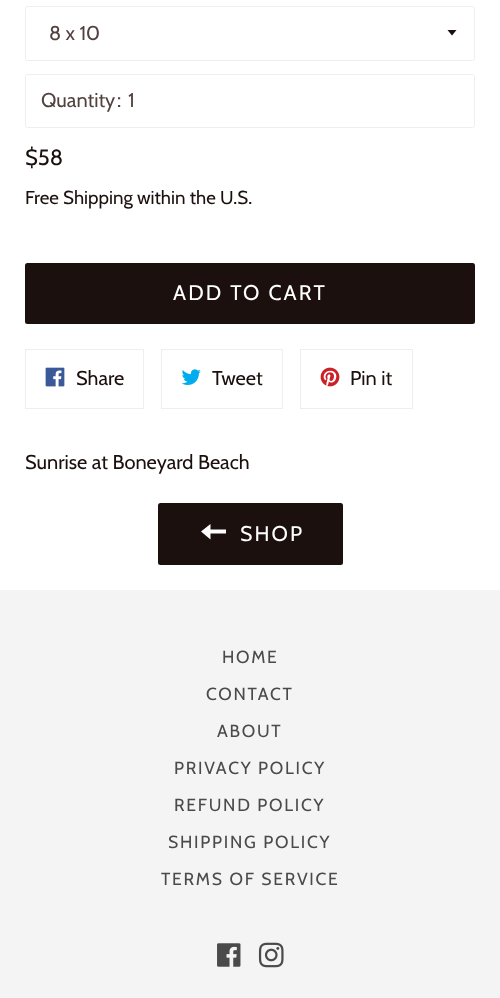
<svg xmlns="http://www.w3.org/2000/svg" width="500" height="998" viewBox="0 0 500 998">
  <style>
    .t1 { font: 20px Cabin; fill: #51423f; }
    .t2 { font: 22px Cabin; fill: #1b100e; }
    .t3 { font: 18.75px Cabin; fill: #1b100e; }
    .t4 { font: 21.25px Cabin; letter-spacing: 2.1px; fill: #fff; }
    .t5 { font: 20px Cabin; fill: #1b100e; }
    .t6 { font: 17.5px Cabin; letter-spacing: 1.75px; fill: #4a4a4a; }
  </style>
  <rect width="100%" height="100%" fill="#fff"/>
  <rect x="25.5" y="6.5" width="449" height="54" rx="2" fill="none" stroke="#eceff1"/>
  <path d="M447.5 30L452 35.5L456.5 30Z" fill="#1b100e"/>
  <text x="49" y="40" class="t1">8 x 10</text>
  <rect x="25.5" y="74.5" width="449" height="53" rx="2" fill="none" stroke="#eceff1"/>
  <text x="41" y="107" class="t1">Quantity</text>
  <text x="117" y="107" class="t1">:</text>
  <text x="128" y="107" class="t1">1</text>
  <text x="25" y="165" class="t2">$58</text>
  <text x="25" y="204" class="t3">Free Shipping within the U.S.</text>
  <rect x="25" y="263" width="450" height="61" rx="2.5" fill="#1b100e"/>
  <text x="173" y="300" class="t4">ADD TO CART</text>
  <rect x="25.5" y="349.5" width="118" height="59" fill="none" stroke="#eceff1"/>
  <image x="45" y="367" width="20" height="20" href="images/1.png"/>
  <text x="76" y="385" class="t5">Share</text>
  <rect x="161.5" y="349.5" width="121" height="59" fill="none" stroke="#eceff1"/>
  <image x="181" y="369" width="20" height="16" href="images/2.png"/>
  <text x="212" y="385" class="t5">Tweet</text>
  <rect x="300.5" y="349.5" width="112" height="59" fill="none" stroke="#eceff1"/>
  <image x="320" y="367" width="20" height="20" href="images/3.png"/>
  <text x="350" y="385" class="t5">Pin it</text>
  <text x="25" y="469" class="t5">Sunrise at Boneyard Beach</text>
  <rect x="158" y="503" width="185" height="62" rx="2.5" fill="#1b100e"/>
  <path d="M210.5 529.5V524L201 531.5L210.5 539.5V533.5H226V529.5Z" fill="#fff"/>
  <text x="240" y="541" class="t4">SHOP</text>
  <rect x="0" y="590" width="500" height="408" fill="#f4f4f4"/>
  <text x="222" y="663" class="t6">HOME</text>
  <text x="206" y="700" class="t6">CONTACT</text>
  <text x="217" y="737" class="t6">ABOUT</text>
  <text x="174" y="774" class="t6">PRIVACY POLICY</text>
  <text x="174" y="811" class="t6">REFUND POLICY</text>
  <text x="168" y="848" class="t6">SHIPPING POLICY</text>
  <text x="161" y="885" class="t6">TERMS OF SERVICE</text>
  <image x="217" y="943" width="24" height="24" href="images/4.png"/>
  <image x="258" y="942" width="26" height="26" href="images/5.png"/>
</svg>
